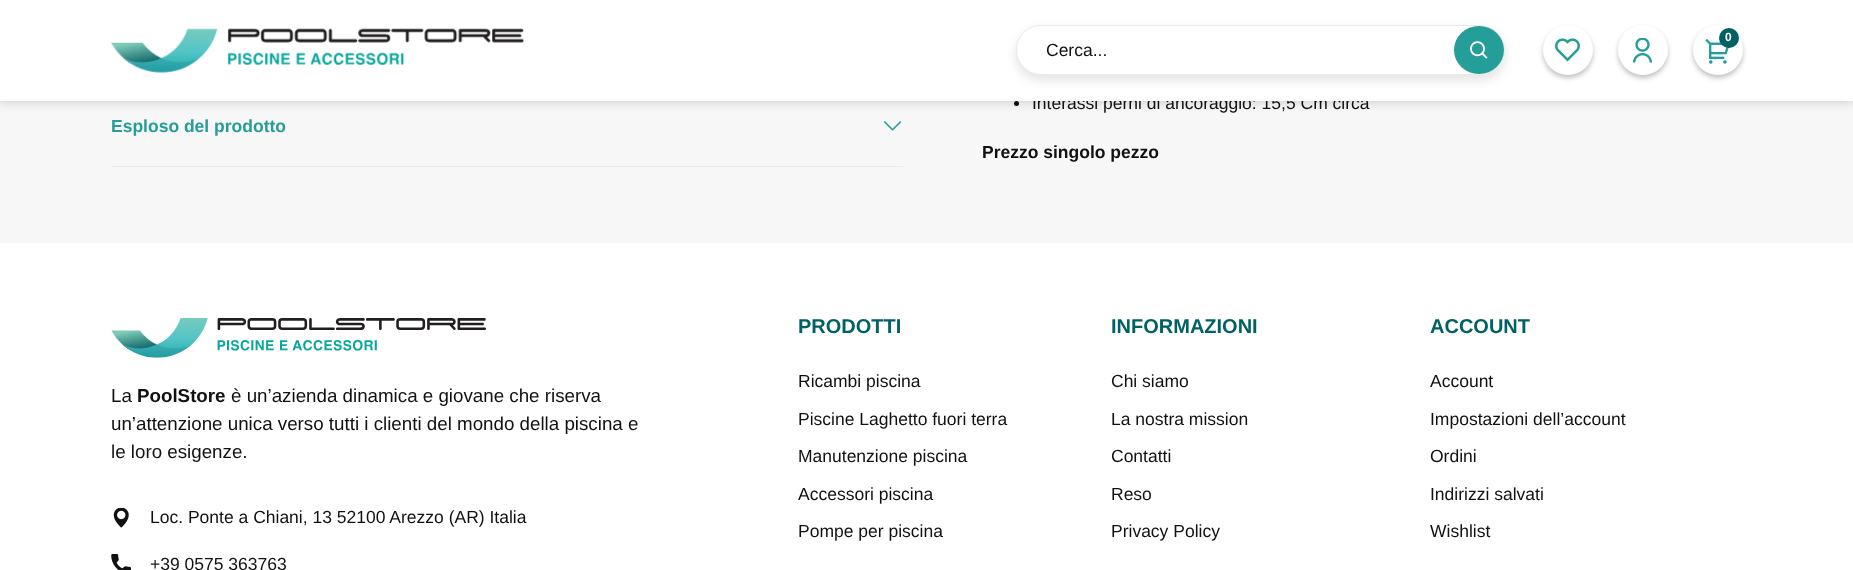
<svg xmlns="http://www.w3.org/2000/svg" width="1853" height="570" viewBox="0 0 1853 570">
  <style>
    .t1 { font: 17.5px Liberation Sans; fill: #111; }
    .t2 { font: bold 12px Liberation Sans; fill: #fff; }
    .t3 { font: bold 17.5px Liberation Sans; fill: #259d99; }
    .t4 { font: bold 17.5px Liberation Sans; fill: #111; }
    .t5 { font: 18.75px Liberation Sans; fill: #111; }
    .t6 { font: bold 18.75px Liberation Sans; fill: #111; }
    .t7 { font: bold 20px Liberation Sans; fill: #006164; }
  </style>
  <rect width="100%" height="100%" fill="#f7f7f7"/>
  <circle cx="1016.5" cy="103.5" r="2.5" fill="#111"/>
  <rect x="0" y="0" width="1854" height="101" fill="#00000033" filter="blur(6px)"/>
  <text x="1032" y="109" class="t1">Interassi perni di ancoraggio: 15,5 Cm circa</text>
  <rect x="0" y="0" width="1853" height="101" fill="#fff"/>
  <image x="111" y="28" width="413" height="45" href="images/1.png"/>
  <rect x="1543" y="28" width="50" height="50" rx="25" fill="#20212447" filter="blur(2.5px)"/>
  <circle cx="1568" cy="50" r="25" fill="#fff"/>
  <image x="1555" y="38" width="25" height="24" href="images/2.png"/>
  <rect x="1618" y="28" width="50" height="50" rx="25" fill="#20212447" filter="blur(2.5px)"/>
  <circle cx="1643" cy="50" r="25" fill="#fff"/>
  <image x="1633" y="38" width="19" height="25" href="images/3.png"/>
  <rect x="1693" y="28" width="50" height="50" rx="25" fill="#20212447" filter="blur(2.5px)"/>
  <circle cx="1718" cy="50" r="25" fill="#fff"/>
  <image x="1705" y="39" width="24" height="25" href="images/4.png"/>
  <circle cx="1729" cy="38" r="10" fill="#006164"/>
  <text x="1725" y="41" class="t2">0</text>
  <rect x="1015" y="29" width="491" height="52" rx="26" fill="#2021241c" filter="blur(5px)"/>
  <rect x="1016.5" y="25.5" width="488" height="49" rx="24.5" fill="#fff" stroke="#eaeaea"/>
  <text x="1046" y="56" class="t1">Cerca...</text>
  <ellipse cx="1479" cy="50" rx="25" ry="24" fill="#259d99"/>
  <image x="1470" y="41" width="18" height="18" href="images/5.png"/>
  <rect x="111" y="166" width="792" height="1" fill="#eaeaea"/>
  <image x="884" y="121" width="17" height="10" href="images/6.png"/>
  <text x="111" y="132" class="t3">Esploso del prodotto</text>
  <text x="982" y="158" class="t4">Prezzo singolo pezzo</text>
  <rect x="0" y="243" width="1853" height="327" fill="#fff"/>
  <image x="111" y="318" width="375" height="40" href="images/7.png"/>
  <text x="111" y="402" class="t5">La</text>
  <text x="137" y="402" class="t6">PoolStore</text>
  <text x="231" y="402" class="t5">è un’azienda dinamica e giovane che riserva</text>
  <text x="111" y="430" class="t5">un’attenzione unica verso tutti i clienti del mondo della piscina e</text>
  <text x="111" y="458" class="t5">le loro esigenze.</text>
  <image x="113" y="508" width="16" height="20" href="images/8.png"/>
  <text x="150" y="523" class="t1">Loc. Ponte a Chiani, 13 52100 Arezzo (AR) Italia</text>
  <image x="111" y="554" width="20" height="16" href="images/9.png"/>
  <text x="150" y="570" class="t1">+39 0575 363763</text>
  <text x="798" y="333" class="t7">PRODOTTI</text>
  <text x="798" y="387" class="t1">Ricambi piscina</text>
  <text x="798" y="425" class="t1">Piscine Laghetto fuori terra</text>
  <text x="798" y="462" class="t1">Manutenzione piscina</text>
  <text x="798" y="500" class="t1">Accessori piscina</text>
  <text x="798" y="537" class="t1">Pompe per piscina</text>
  <text x="1111" y="333" class="t7">INFORMAZIONI</text>
  <text x="1111" y="387" class="t1">Chi siamo</text>
  <text x="1111" y="425" class="t1">La nostra mission</text>
  <text x="1111" y="462" class="t1">Contatti</text>
  <text x="1111" y="500" class="t1">Reso</text>
  <text x="1111" y="537" class="t1">Privacy Policy</text>
  <text x="1430" y="333" class="t7">ACCOUNT</text>
  <text x="1430" y="387" class="t1">Account</text>
  <text x="1430" y="425" class="t1">Impostazioni dell’account</text>
  <text x="1430" y="462" class="t1">Ordini</text>
  <text x="1430" y="500" class="t1">Indirizzi salvati</text>
  <text x="1430" y="537" class="t1">Wishlist</text>
</svg>
